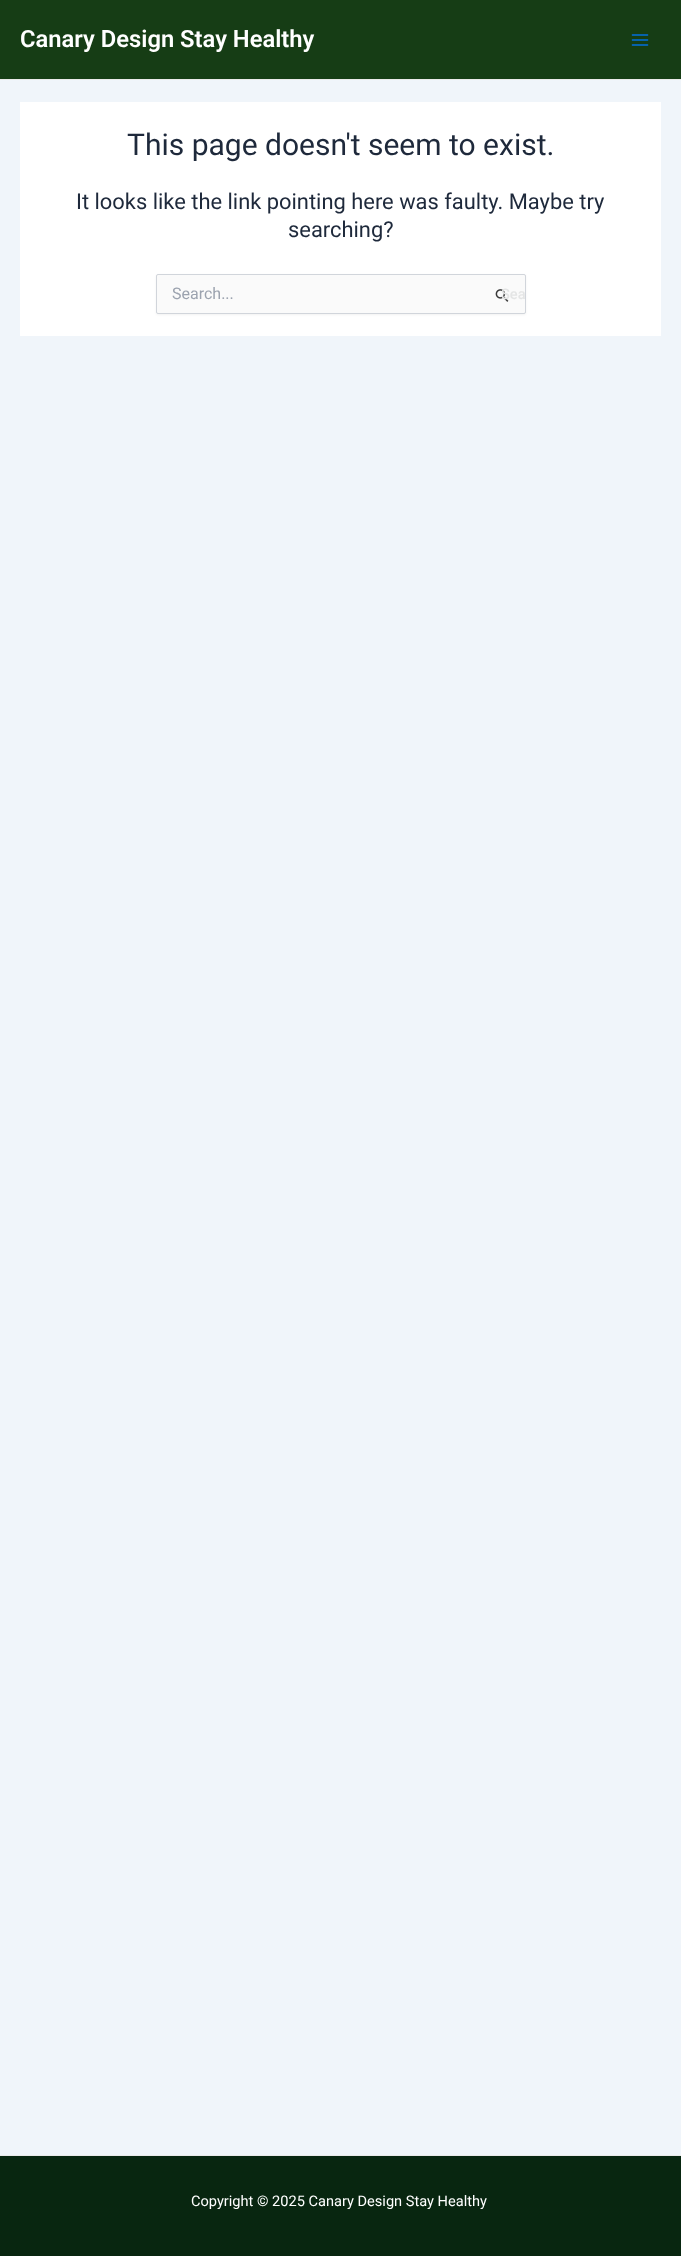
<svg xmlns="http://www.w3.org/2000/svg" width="681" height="2256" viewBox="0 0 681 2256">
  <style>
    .t1 { font: 600 23.75px Roboto; fill: #fff; }
    .t2 { font: 30px Roboto; fill: #1e293b; }
    .t3 { font: 21.9px Roboto; fill: #1e293b; }
    .t4 { font: 16px Roboto; fill: #9ca3af; }
    .t5 { font: 500 14.6px Roboto; fill: #e4e5e5; }
    .t6 { font: 14.6px Roboto; fill: #fff; }
  </style>
  <rect width="100%" height="100%" fill="#f0f5fa"/>
  <rect x="0" y="0" width="681" height="79" fill="#163d15"/>
  <rect x="0" y="79" width="681" height="1" fill="#eaeaea"/>
  <text x="20" y="47" class="t1">Canary Design Stay Healthy</text>
  <image x="631" y="34" width="18" height="12" href="images/1.png"/>
  <rect x="20" y="102" width="641" height="234" fill="#fff"/>
  <text x="127" y="155" class="t2">This page doesn't seem to exist.</text>
  <text x="76" y="209" class="t3">It looks like the link pointing here was faulty. Maybe try</text>
  <text x="288" y="237" class="t3">searching?</text>
  <rect x="156" y="275" width="370" height="40" rx="2" fill="#0000000d" filter="blur(1px)"/>
  <rect x="156.5" y="274.5" width="369" height="39" rx="1.5" fill="#fafafa" stroke="#d1d5db"/>
  <text x="172" y="299" class="t4">Search...</text>
  <image x="495" y="289" width="14" height="13" href="images/2.png"/>
  <text x="501" y="299" class="t5">Sea</text>
  <rect x="0" y="2156" width="681" height="100" fill="#082610"/>
  <rect x="0" y="2155" width="681" height="1" fill="#eaeaea"/>
  <text x="191" y="2206" class="t6">Copyright © 2025 Canary Design Stay Healthy</text>
</svg>
